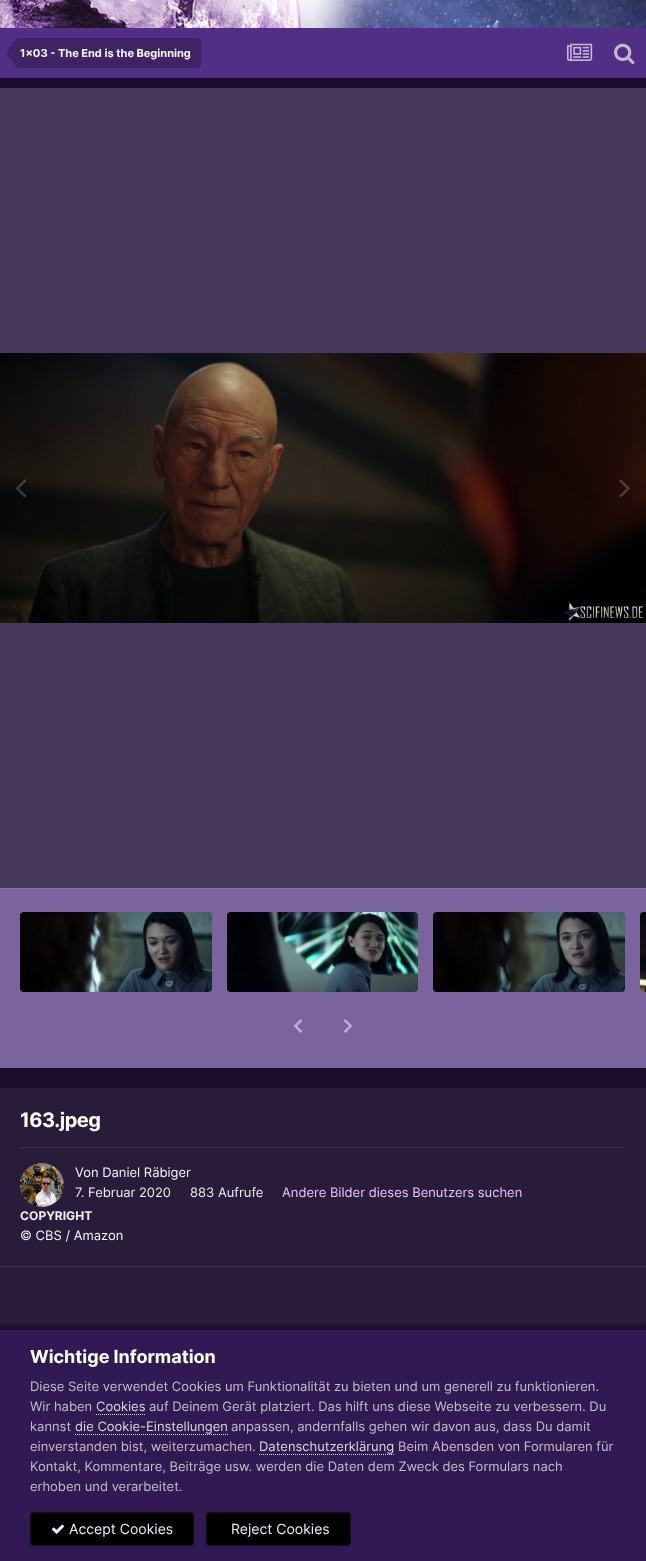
<svg xmlns="http://www.w3.org/2000/svg" width="646" height="1561" viewBox="0 0 646 1561">
  <style>
    .t1 { font: bold 11px Inter; fill: #f3f6f4; }
    .t2 { font: bold 20px Inter; letter-spacing: -0.5px; fill: #fff; }
    .t3 { font: 13px Inter; fill: #f3f6f4; }
    .t4 { font: 13px Inter; fill: #eee; }
    .t5 { font: 13px Inter; fill: #e6c4f5; }
    .t6 { font: bold 12px Inter; fill: #eee; }
    .t7 { font: bold 18px Inter; fill: #fff; }
    .t8 { font: 13px Inter; fill: #c0c0c0; }
    .t9 { font: 13px Inter; fill: #dadada; }
    .t10 { font: 14px Inter; fill: #f6e8fc; }
  </style>
  <rect width="100%" height="100%" fill="#1b0e2d"/>
  <image x="0" y="0" width="646" height="28" href="images/1.png"/>
  <rect x="0" y="28" width="646" height="50" fill="#522e87"/>
  <path d="M20 38H196C199 38 201 40 201 43V63C201 66 199 68 196 68H20Z" fill="#3e2365"/>
  <path d="M20 53V68C15.5 68 13.5 63.5 11 60C9.5 58 7 56 7 53ZM20 53H7C7 50 9.5 48 11 46C13.5 42.5 15.5 38 20 38Z" fill="#3e2365"/>
  <text x="20" y="57" class="t1">1x03 - The End is the Beginning</text>
  <image x="567" y="43" width="26" height="18" href="images/2.png"/>
  <image x="614" y="43" width="21" height="22" href="images/3.png"/>
  <rect x="0" y="88" width="646" height="800" fill="#46395a"/>
  <image x="0" y="353" width="646" height="270" href="images/4.png"/>
  <image x="16" y="479" width="11" height="19" href="images/5.png"/>
  <image x="619" y="479" width="11" height="19" href="images/6.png"/>
  <rect x="0" y="889" width="646" height="179" fill="#7b639d"/>
  <rect x="0" y="888" width="646" height="1" fill="#8873a7"/>
  <image x="20" y="912" width="192" height="80" href="images/7.png"/>
  <image x="227" y="912" width="191" height="80" href="images/8.png"/>
  <image x="433" y="912" width="192" height="80" href="images/9.png"/>
  <image x="640" y="912" width="6" height="80" href="images/10.png"/>
  <image x="294" y="1019" width="8" height="14" href="images/11.png"/>
  <image x="344" y="1019" width="8" height="14" href="images/12.png"/>
  <rect x="1" y="1091" width="644" height="234" fill="#af8ee01a" filter="blur(2px)"/>
  <rect x="0" y="1088" width="646" height="236" fill="#291c3b"/>
  <text x="20" y="1127" class="t2">163.jpeg</text>
  <rect x="20" y="1147" width="606" height="1" fill="#392d4a"/>
  <image x="20" y="1163" width="44" height="44" href="images/13.png"/>
  <text x="75" y="1177" class="t3">Von Daniel Räbiger</text>
  <text x="75" y="1197" class="t4">7. Februar 2020</text>
  <text x="190" y="1197" class="t4">883 Aufrufe</text>
  <text x="282" y="1197" class="t5">Andere Bilder dieses Benutzers suchen</text>
  <text x="20" y="1220" class="t6">COPYRIGHT</text>
  <text x="20" y="1240" class="t3">© CBS / Amazon</text>
  <rect x="0" y="1266" width="646" height="1" fill="#3d324e"/>
  <rect x="0" y="1330" width="646" height="231" fill="#311953"/>
  <text x="30" y="1363" class="t7">Wichtige Information</text>
  <text x="30" y="1391" class="t8">Diese Seite verwendet Cookies um Funktionalität zu bieten und um generell zu funktionieren.</text>
  <text x="30" y="1411" class="t8">Wir haben</text>
  <text x="96" y="1411" class="t9">Cookies</text>
  <path d="M96 1414.5H145" fill="none" stroke="#dadada" stroke-dasharray="1 1"/>
  <text x="149" y="1411" class="t8">auf Deinem Gerät platziert. Das hilft uns diese Webseite zu verbessern. Du</text>
  <text x="30" y="1431" class="t8">kannst</text>
  <text x="75" y="1431" class="t9">die Cookie-Einstellungen</text>
  <path d="M75 1434.5H228" fill="none" stroke="#dadada" stroke-dasharray="1 1"/>
  <text x="231" y="1431" class="t8">anpassen, andernfalls gehen wir davon aus, dass Du damit</text>
  <text x="30" y="1451" class="t8">einverstanden bist, weiterzumachen.</text>
  <text x="259" y="1451" class="t9">Datenschutzerklärung</text>
  <path d="M259 1454.5H395" fill="none" stroke="#dadada" stroke-dasharray="1 1"/>
  <text x="398" y="1451" class="t8">Beim Abensden von Formularen für</text>
  <text x="30" y="1471" class="t8">Kontakt, Kommentare, Beiträge usw. werden die Daten dem Zweck des Formulars nach</text>
  <text x="30" y="1491" class="t8">erhoben und verarbeitet.</text>
  <rect x="30" y="1512" width="164" height="34" rx="4" fill="#000"/>
  <rect x="30.5" y="1512.5" width="163" height="33" rx="3.5" fill="none" stroke="#f6e8fc12"/>
  <image x="52" y="1524" width="12" height="10" href="images/14.png"/>
  <text x="69" y="1534" class="t10">Accept Cookies</text>
  <rect x="206" y="1512" width="145" height="34" rx="4" fill="#000"/>
  <rect x="206.5" y="1512.5" width="144" height="33" rx="3.5" fill="none" stroke="#f6e8fc12"/>
  <text x="231" y="1534" class="t10">Reject Cookies</text>
</svg>
